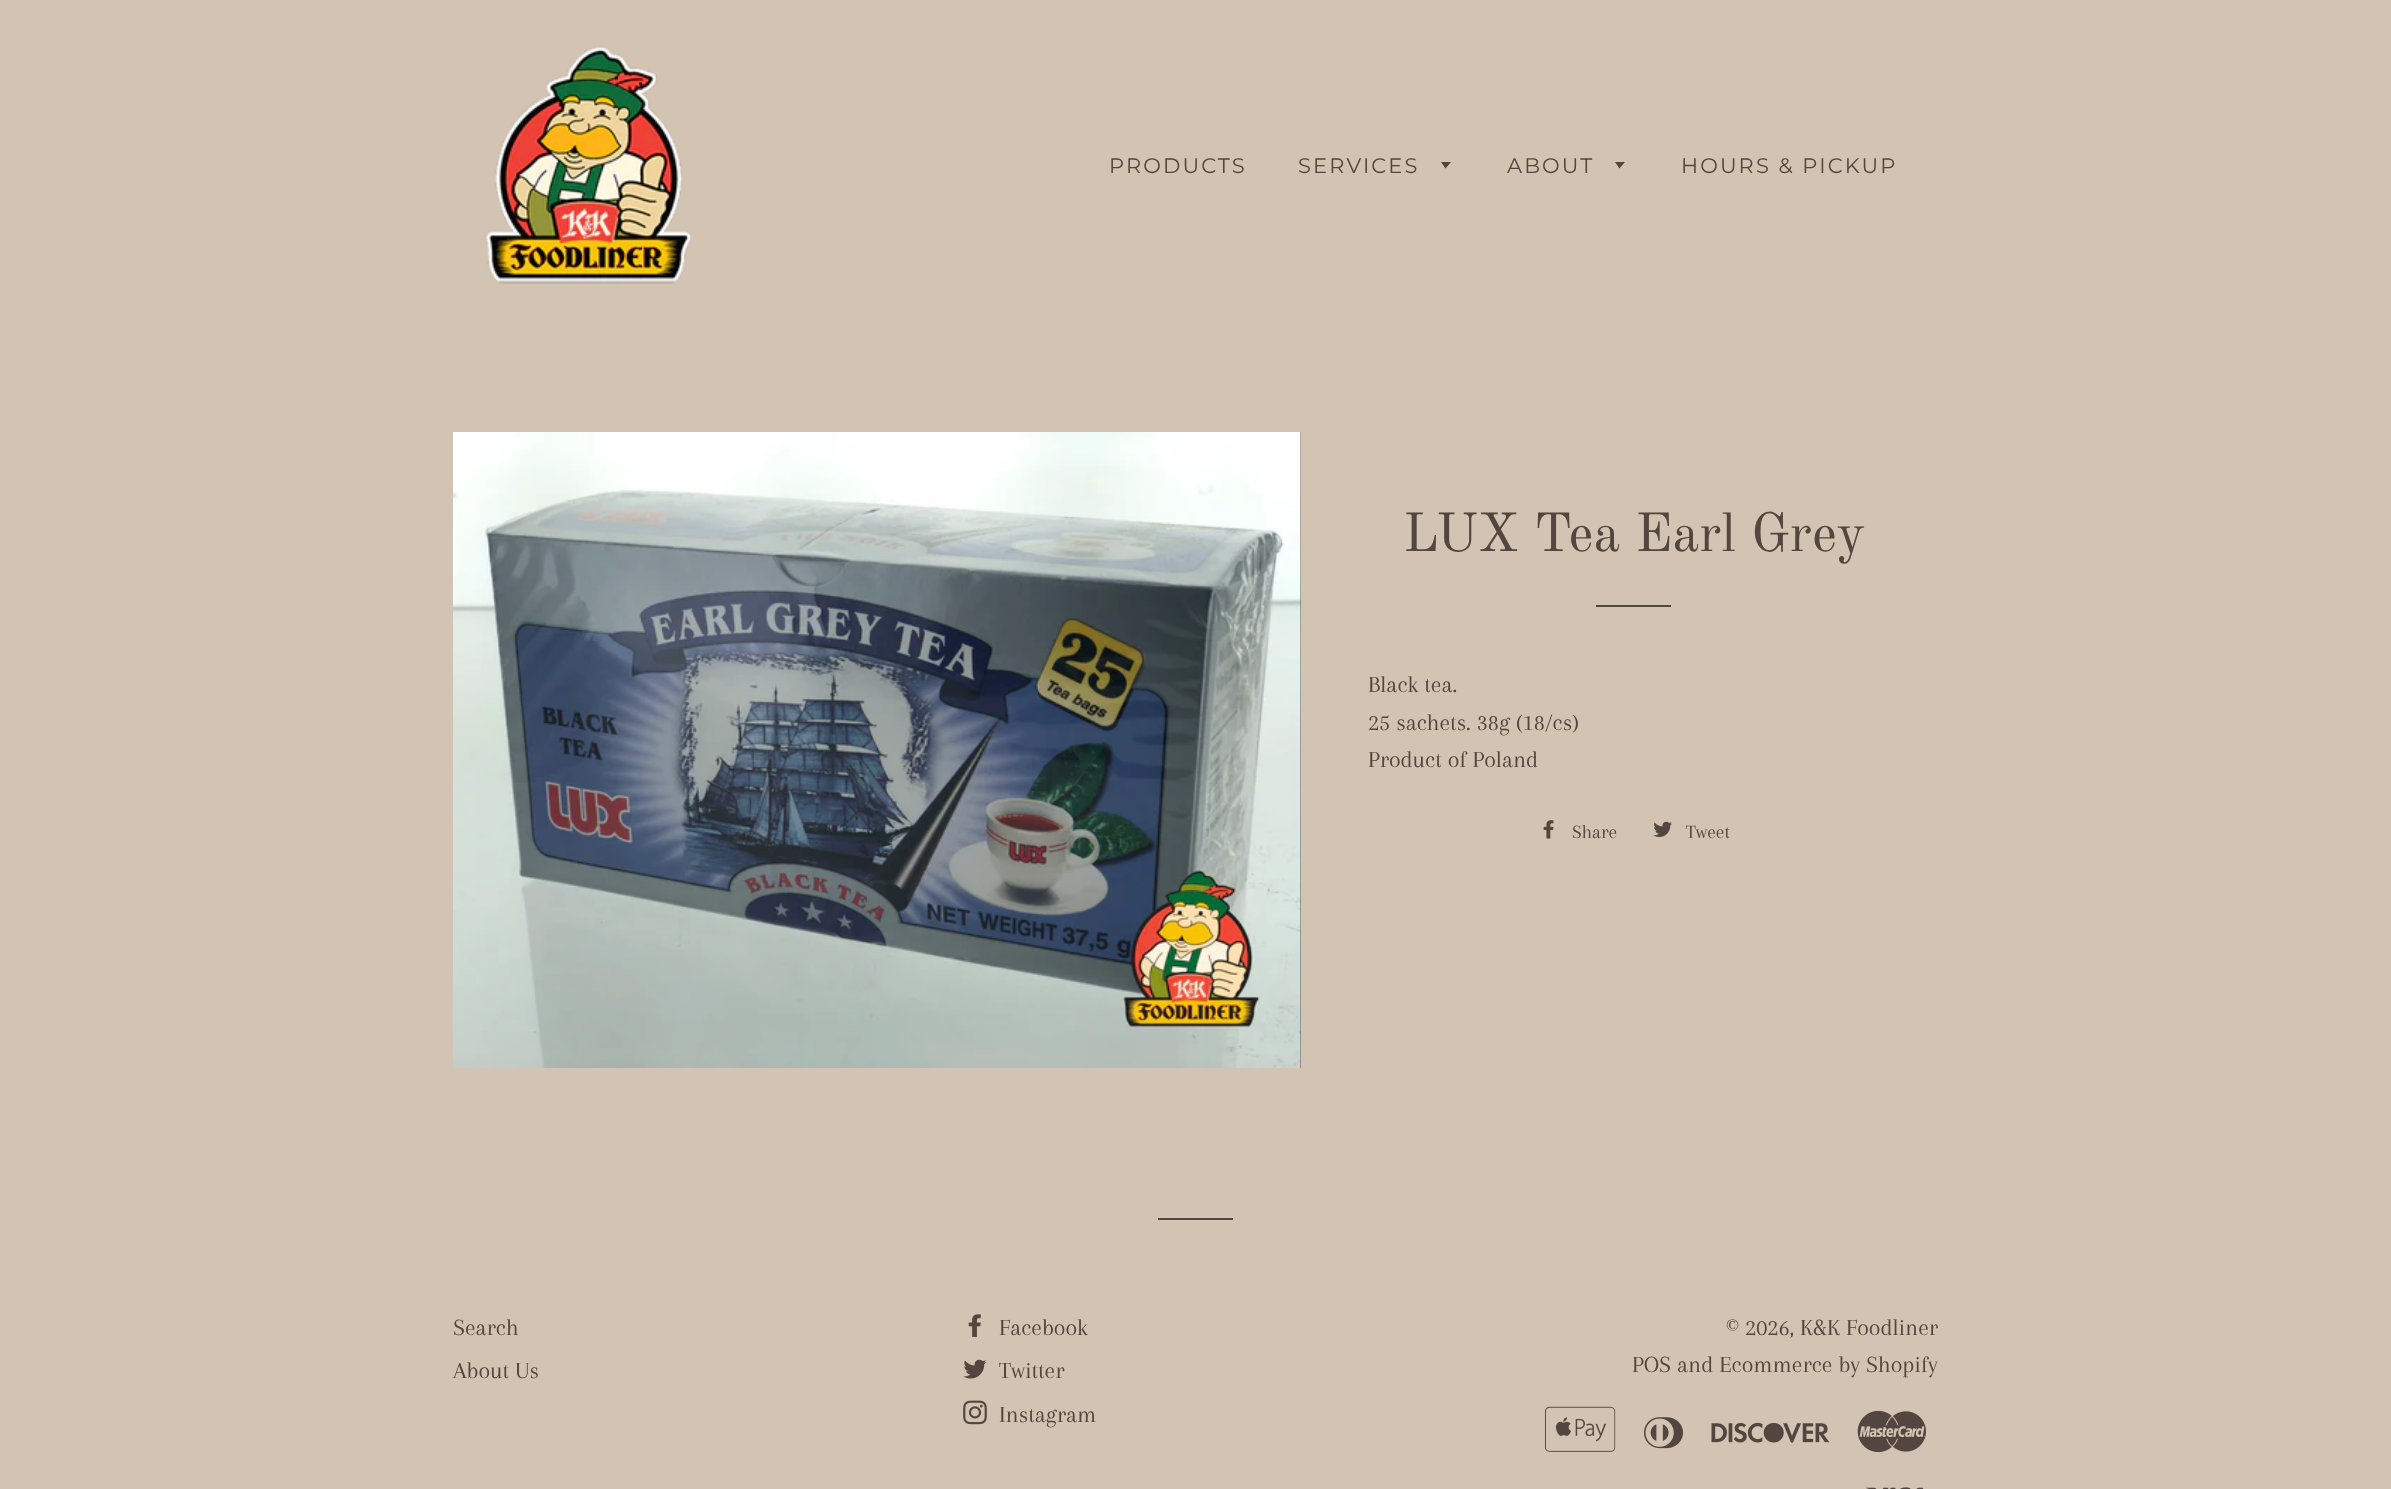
<svg xmlns="http://www.w3.org/2000/svg" width="2391" height="1489" viewBox="0 0 2391 1489">
  <style>
    .t1 { font: 100 21px Montserrat; letter-spacing: 2.1px; fill: #53453f; }
    .t2 { font: 54px Old Standard TT; fill: #53453f; }
    .t3 { font: 24px Arapey; fill: #53453f; }
    .t4 { font: 19.5px Arapey; fill: #53453f; }
  </style>
  <rect width="100%" height="100%" fill="#d3c3b2"/>
  <image x="484" y="45" width="208" height="239" href="images/1.png"/>
  <text x="1109" y="173" class="t1">PRODUCTS</text>
  <text x="1298" y="173" class="t1">SERVICES</text>
  <path d="M1441 162L1445.5 168.5L1451 162Z" fill="#53453f"/>
  <text x="1507" y="173" class="t1">ABOUT</text>
  <path d="M1615 162L1619.5 168.5L1625 162Z" fill="#53453f"/>
  <text x="1681" y="173" class="t1">HOURS &amp; PICKUP</text>
  <rect x="1300" y="432" width="1" height="636" fill="#585252"/>
  <image x="453" y="432" width="848" height="636" href="images/2.png"/>
  <text x="1403" y="551" class="t2">LUX Tea Earl Grey</text>
  <rect x="1596" y="605" width="75" height="2" fill="#53453f"/>
  <text x="1368" y="692" class="t3">Black tea.</text>
  <text x="1368" y="730" class="t3">25 sachets. 38g (18/cs)</text>
  <text x="1368" y="767" class="t3">Product of Poland</text>
  <image x="1543" y="820" width="11" height="19" href="images/3.png"/>
  <text x="1572" y="838" class="t4">Share</text>
  <image x="1653" y="821" width="19" height="16" href="images/4.png"/>
  <text x="1686" y="838" class="t4">Tweet</text>
  <rect x="1158" y="1218" width="75" height="2" fill="#53453f"/>
  <text x="453" y="1335" class="t3">Search</text>
  <text x="453" y="1378" class="t3">About Us</text>
  <image x="968" y="1314" width="13" height="23" href="images/5.png"/>
  <text x="999" y="1335" class="t3">Facebook</text>
  <image x="963" y="1359" width="24" height="20" href="images/6.png"/>
  <text x="999" y="1378" class="t3">Twitter</text>
  <image x="963" y="1400" width="24" height="25" href="images/7.png"/>
  <text x="999" y="1422" class="t3">Instagram</text>
  <text x="1726" y="1335" class="t3">© 2026, K&amp;K Foodliner</text>
  <text x="1632" y="1372" class="t3">POS and Ecommerce by Shopify</text>
  <image x="1545" y="1406" width="71" height="46" href="images/8.png"/>
  <image x="1644" y="1417" width="39" height="32" href="images/9.png"/>
  <image x="1711" y="1422" width="119" height="21" href="images/10.png"/>
  <image x="1857" y="1410" width="69" height="43" href="images/11.png"/>
  <image x="1866" y="1487" width="58" height="2" href="images/12.png"/>
</svg>
